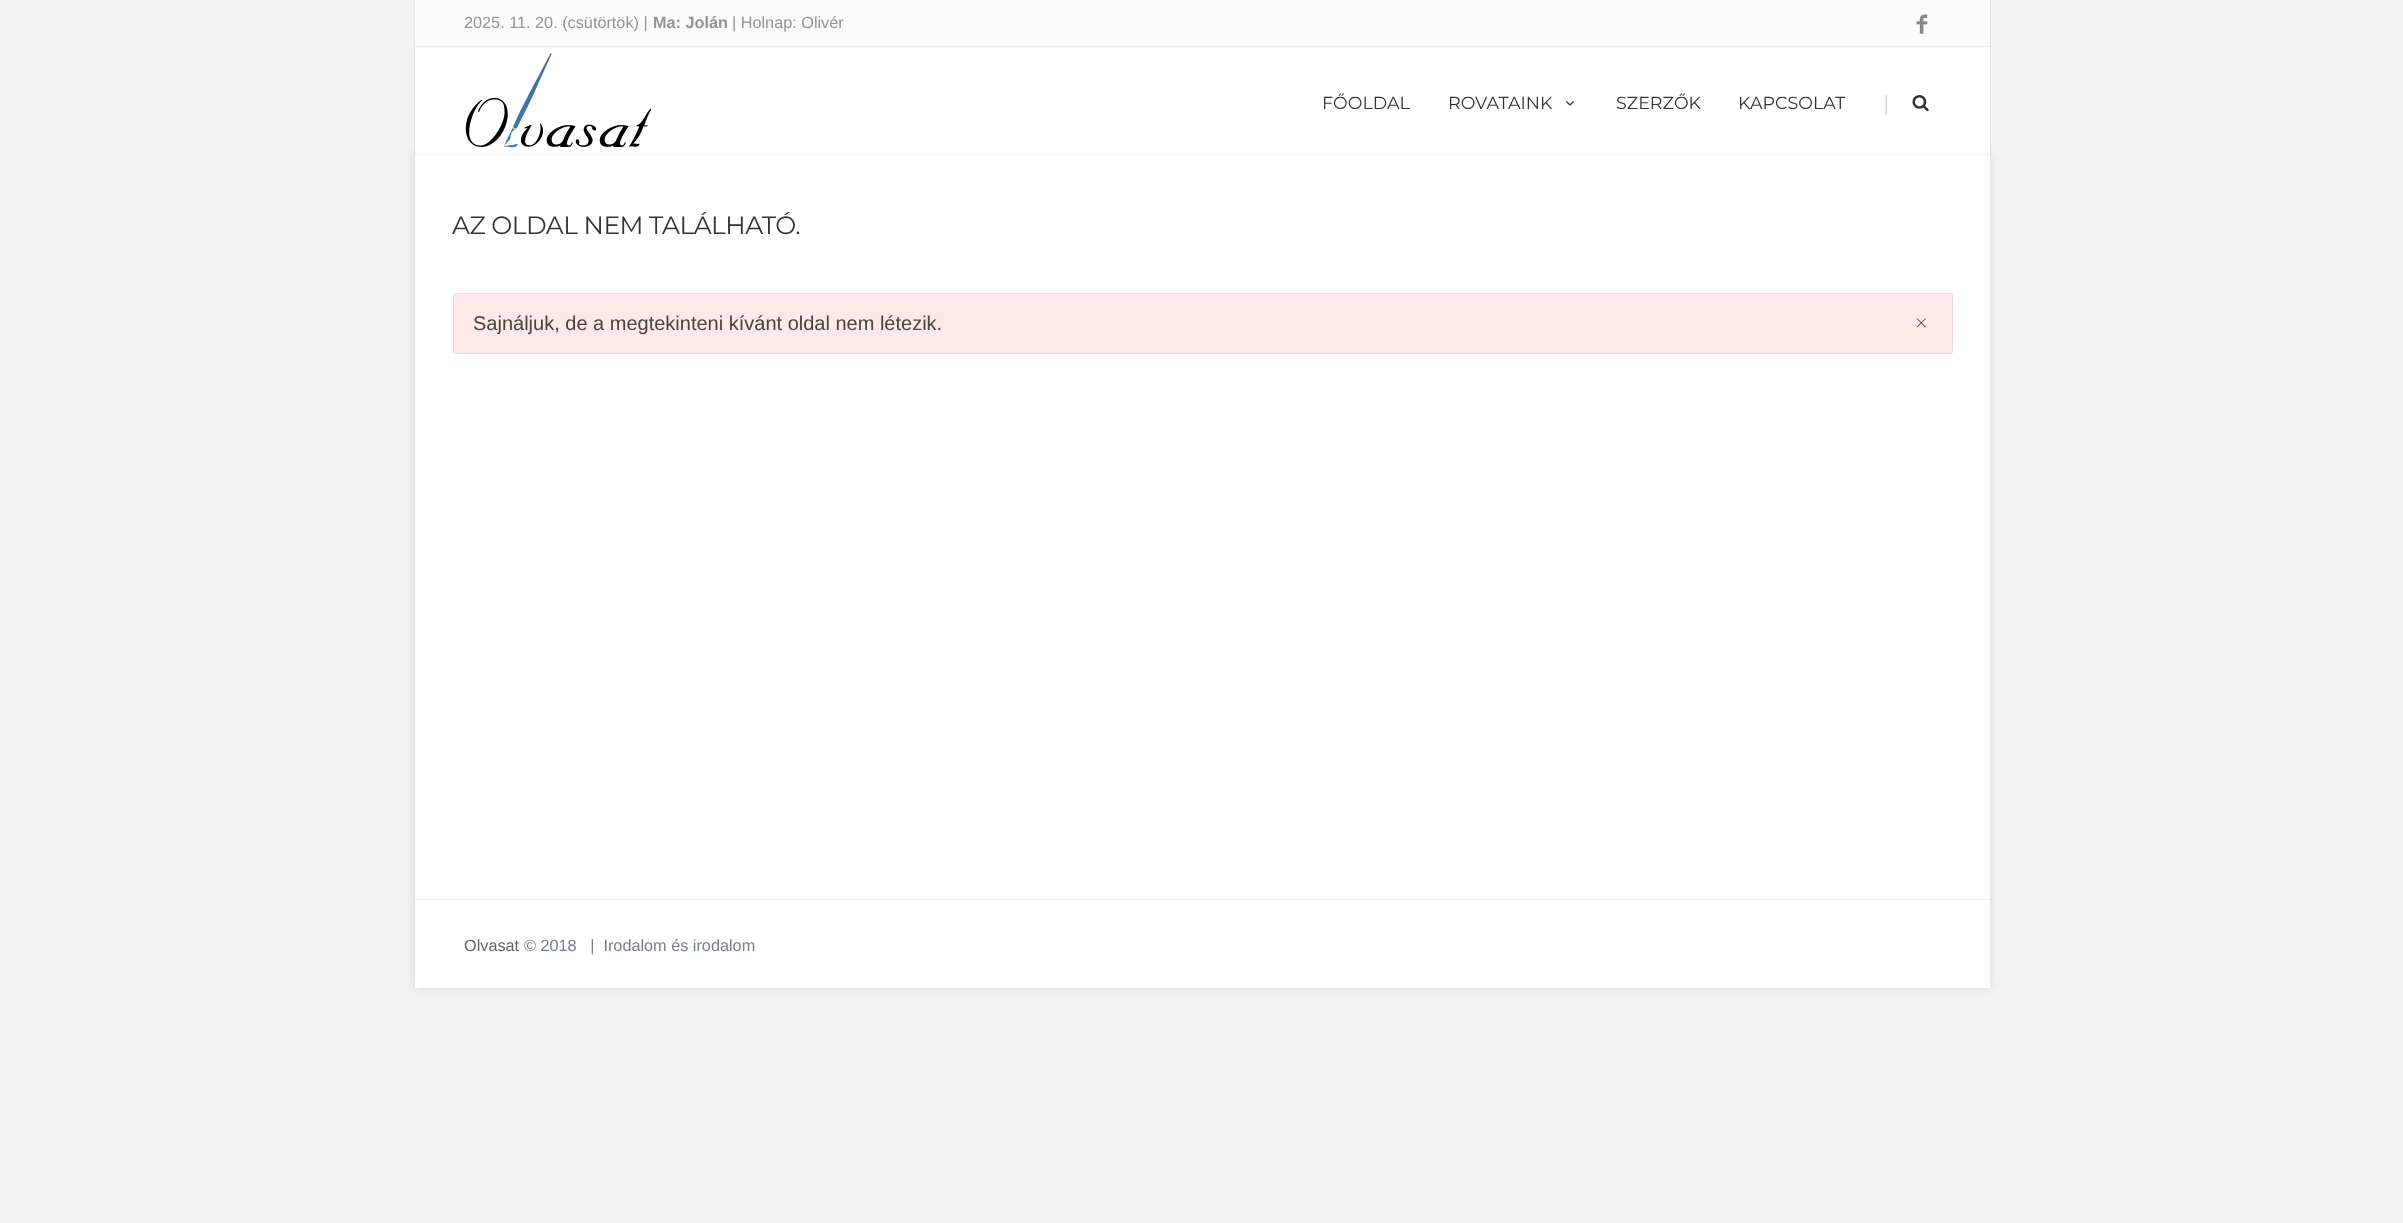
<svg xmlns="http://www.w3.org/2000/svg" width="2403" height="1223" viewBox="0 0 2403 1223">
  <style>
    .t1 { font: 16.25px Liberation Sans; fill: #939393; }
    .t2 { font: bold 16.25px Liberation Sans; fill: #939393; }
    .t3 { font: 17.5px Montserrat; fill: #333; }
    .t4 { font: 300 21px Lato; fill: #adadad; }
    .t5 { font: 25px Montserrat; letter-spacing: -0.5px; fill: #333; }
    .t6 { font: 20px Liberation Sans; fill: #444; }
    .t7 { font: 16.25px Liberation Sans; fill: #636363; }
    .t8 { font: 16.25px Liberation Sans; fill: #748188; }
  </style>
  <rect width="100%" height="100%" fill="#f2f2f2"/>
  <rect x="415" y="154" width="1575" height="834" fill="#0000001f" filter="blur(5px)"/>
  <rect x="415" y="154" width="1575" height="745" fill="#fff"/>
  <rect x="414.5" y="-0.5" width="1576" height="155" fill="none" stroke="#0000000d"/>
  <rect x="415" y="48" width="1575" height="106" fill="#fff"/>
  <rect x="415" y="0" width="1575" height="48" fill="#fbfbfb"/>
  <rect x="415" y="46" width="1575" height="1" fill="#eee"/>
  <text x="464" y="28" class="t1">2025. 11. 20. (csütörtök) |</text>
  <text x="653" y="28" class="t2">Ma: Jolán</text>
  <text x="732" y="28" class="t1">| Holnap: Olivér</text>
  <image x="1916" y="14" width="12" height="20" href="images/1.png"/>
  <image x="465" y="53" width="186" height="95" href="images/2.png"/>
  <text x="1322" y="109" class="t3">FŐOLDAL</text>
  <text x="1448" y="109" class="t3">ROVATAINK</text>
  <image x="1566" y="101" width="8" height="5" href="images/3.png"/>
  <text x="1616" y="109" class="t3">SZERZŐK</text>
  <text x="1738" y="109" class="t3">KAPCSOLAT</text>
  <text x="1883" y="111" class="t4">|</text>
  <image x="1912" y="95" width="17" height="17" href="images/4.png"/>
  <text x="452" y="234" class="t5">AZ OLDAL NEM TALÁLHATÓ.</text>
  <rect x="453.5" y="293.5" width="1499" height="60" rx="2" fill="#ffe8e8" stroke="#efd9d9"/>
  <text x="473" y="330" class="t6">Sajnáljuk, de a megtekinteni kívánt oldal nem létezik.</text>
  <image x="1916" y="318" width="10" height="10" href="images/5.png"/>
  <rect x="415" y="900" width="1575" height="88" fill="#fff"/>
  <rect x="415" y="899" width="1575" height="1" fill="#e9e9e9"/>
  <text x="464" y="951" class="t7">Olvasat</text>
  <text x="524" y="951" class="t8" xml:space="preserve">© 2018   |  Irodalom és irodalom</text>
</svg>
